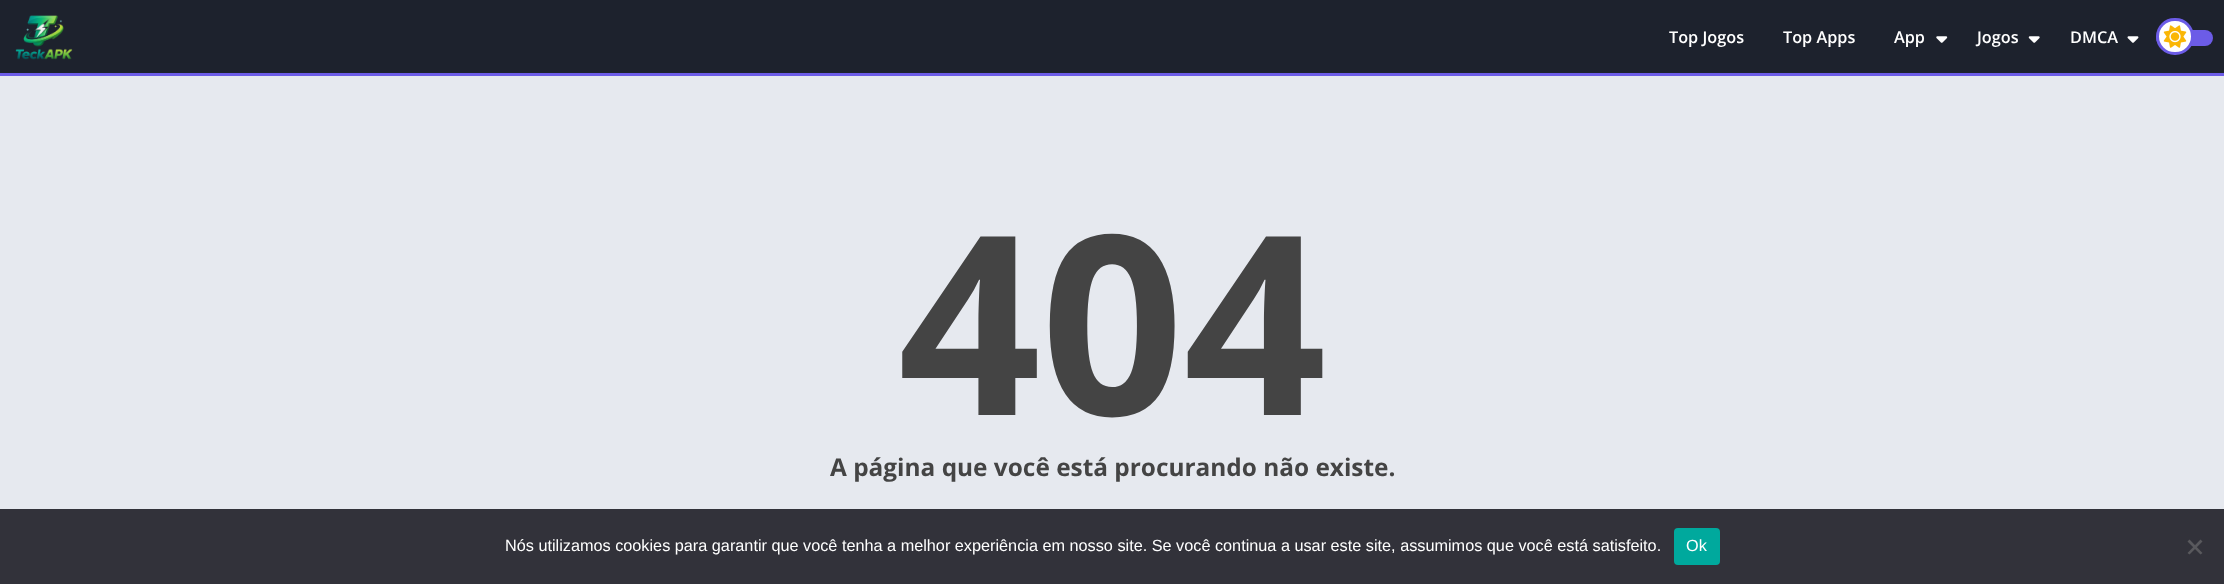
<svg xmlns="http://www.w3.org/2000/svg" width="2224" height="584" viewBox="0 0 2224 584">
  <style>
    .t1 { font: 600 16.25px Open Sans; fill: #fff; }
    .t2 { font: bold 250px Open Sans; fill: #444; }
    .t3 { font: bold 24.4px Open Sans; fill: #444; }
    .t4 { font: 16.25px Liberation Sans; fill: #fff; }
  </style>
  <rect width="100%" height="100%" fill="#e6e9ef"/>
  <rect x="0" y="0" width="2224" height="73" fill="#1d222d"/>
  <rect x="0" y="73" width="2224" height="3" fill="#6c5ce7"/>
  <image x="15" y="15" width="58" height="45" href="images/1.png"/>
  <text x="1669" y="43" class="t1">Top Jogos</text>
  <text x="1783" y="43" class="t1">Top Apps</text>
  <text x="1894" y="43" class="t1">App</text>
  <image x="1936" y="36" width="12" height="7" href="images/2.png"/>
  <text x="1977" y="43" class="t1">Jogos</text>
  <image x="2028" y="36" width="12" height="7" href="images/3.png"/>
  <text x="2070" y="43" class="t1">DMCA</text>
  <image x="2127" y="36" width="12" height="7" href="images/4.png"/>
  <rect x="2156" y="30" width="57" height="16" rx="8" fill="#6c5ce7"/>
  <rect x="2157.5" y="19.5" width="35" height="34" rx="17" fill="#fff" stroke="#6c5ce7" stroke-width="3"/>
  <image x="2163" y="25" width="24" height="23" href="images/5.png"/>
  <text x="898" y="415" class="t2">404</text>
  <text x="830" y="476" class="t3">A página que você está procurando não existe.</text>
  <rect x="0" y="509" width="2224" height="75" fill="#32323a"/>
  <text x="505" y="551" class="t4">Nós utilizamos cookies para garantir que você tenha a melhor experiência em nosso site. Se você continua a usar este site, assumimos que você está satisfeito.</text>
  <rect x="1674" y="528" width="46" height="37" rx="4" fill="#00a99d"/>
  <text x="1686" y="551" class="t4">Ok</text>
  <path d="M2200.5 539.5L2202.5 541.5L2189.5 554.5L2187.5 553Z" fill="#59595d"/>
  <path d="M2187.5 541.5L2189.5 539.5L2202.5 553L2200.5 554.5Z" fill="#59595d"/>
</svg>
